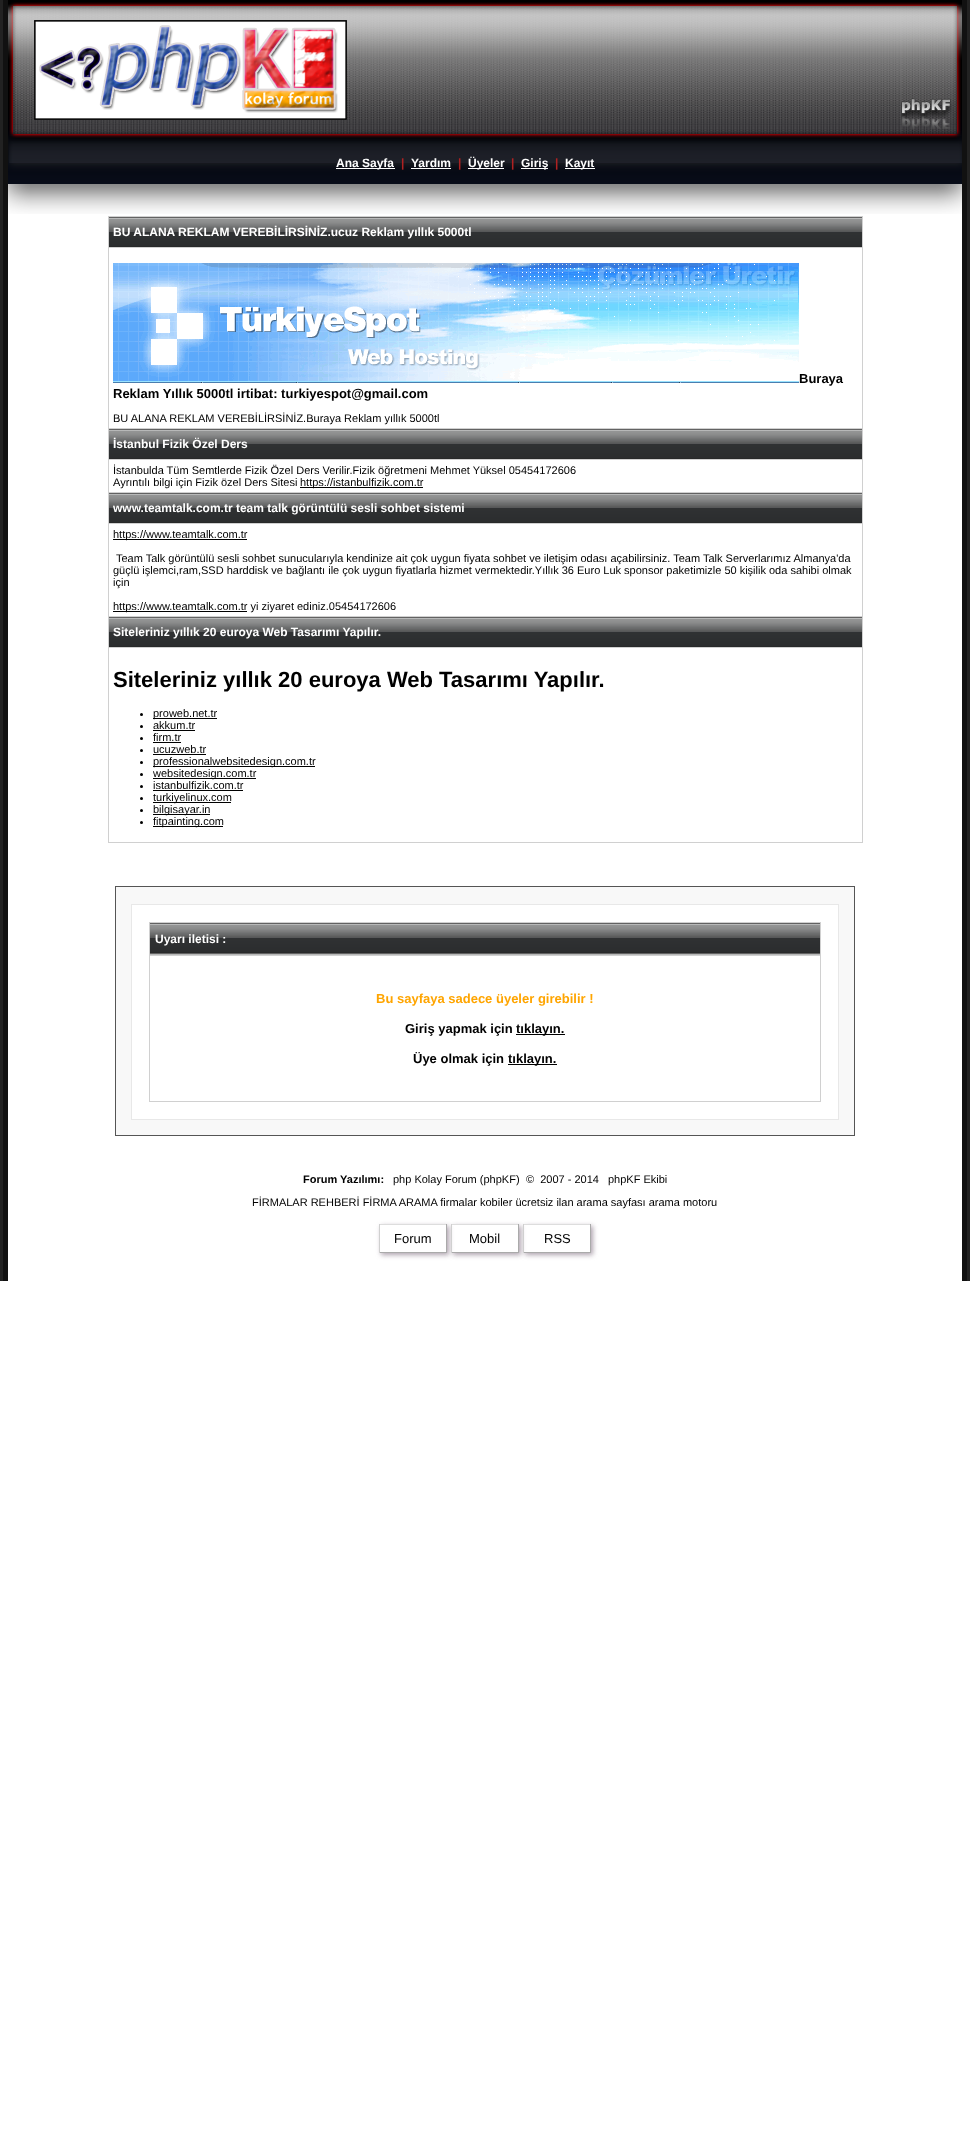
<svg xmlns="http://www.w3.org/2000/svg" width="970" height="2134" viewBox="0 0 970 2134">
  <style>
    .t1 { font: bold 12px Liberation Sans; fill: #fff; }
    .t2 { font: bold 12px Liberation Sans; fill: #af2222; }
    .t3 { font: bold 13px Liberation Sans; fill: #000; }
    .t4 { font: 11px Liberation Sans; fill: #000; }
    .t5 { font: bold 22px Liberation Sans; fill: #000; }
    .t6 { font: bold 13px Liberation Sans; fill: #ffa500; }
    .t7 { font: bold 11px Liberation Sans; fill: #000; }
    .t8 { font: 13px Liberation Sans; fill: #000; }
  </style>
  <defs>
    <clipPath id="clip1"><path d="M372 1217H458V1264H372ZM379 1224H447V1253H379Z" clip-rule="evenodd"/></clipPath>
    <clipPath id="clip2"><path d="M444 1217H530V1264H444ZM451 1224H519V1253H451Z" clip-rule="evenodd"/></clipPath>
    <clipPath id="clip3"><path d="M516 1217H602V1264H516ZM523 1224H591V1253H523Z" clip-rule="evenodd"/></clipPath>
  </defs>
  <rect width="100%" height="100%" fill="#fff"/>
  <rect x="3" y="0" width="964" height="1281" fill="#111"/>
  <rect x="967" y="0" width="3" height="1281" fill="#222"/>
  <rect x="0" y="0" width="3" height="1281" fill="#222"/>
  <rect x="8" y="214" width="954" height="1067" fill="#fff"/>
  <image x="8" y="0" width="22" height="214" href="images/1.png"/>
  <image x="30" y="0" width="871" height="214" href="images/2.png"/>
  <image x="34" y="20" width="313" height="100" href="images/3.png"/>
  <rect x="336" y="168" width="59" height="1" fill="#fff"/>
  <text x="336" y="167" class="t1">Ana Sayfa</text>
  <text x="401" y="167" class="t2">|</text>
  <text x="411" y="167" class="t1">Yardım</text>
  <rect x="411" y="168" width="40" height="1" fill="#fff"/>
  <text x="458" y="167" class="t2">|</text>
  <rect x="468" y="168" width="36" height="1" fill="#fff"/>
  <text x="468" y="167" class="t1">Üyeler</text>
  <text x="511" y="167" class="t2">|</text>
  <rect x="521" y="168" width="27" height="1" fill="#fff"/>
  <text x="521" y="167" class="t1">Giriş</text>
  <text x="555" y="167" class="t2">|</text>
  <rect x="565" y="168" width="30" height="1" fill="#fff"/>
  <text x="565" y="167" class="t1">Kayıt</text>
  <image x="901" y="0" width="61" height="214" href="images/4.png"/>
  <rect x="108" y="216" width="755" height="627" fill="#d0d0d0"/>
  <image x="109" y="217" width="753" height="30" href="images/5.png"/>
  <text x="113" y="236" class="t1">BU ALANA REKLAM VEREBİLİRSİNİZ.ucuz Reklam yıllık 5000tl</text>
  <rect x="109" y="248" width="753" height="180" fill="#fff"/>
  <image x="113" y="263" width="686" height="120" href="images/6.png"/>
  <text x="799" y="383" class="t3">Buraya</text>
  <text x="113" y="398" class="t3">Reklam Yıllık 5000tl irtibat: turkiyespot@gmail.com</text>
  <text x="113" y="422" class="t4">BU ALANA REKLAM VEREBİLİRSİNİZ.Buraya Reklam yıllık 5000tl</text>
  <image x="109" y="429" width="753" height="30" href="images/5.png"/>
  <text x="113" y="448" class="t1">İstanbul Fizik Özel Ders</text>
  <rect x="109" y="460" width="753" height="32" fill="#fff"/>
  <text x="113" y="474" class="t4">İstanbulda Tüm Semtlerde Fizik Özel Ders Verilir.Fizik öğretmeni Mehmet Yüksel 05454172606</text>
  <text x="113" y="486" class="t4">Ayrıntılı bilgi için Fizik özel Ders Sitesi</text>
  <rect x="300" y="487" width="123" height="1" fill="#000"/>
  <text x="300" y="486" class="t4">https://istanbulfizik.com.tr</text>
  <image x="109" y="493" width="753" height="30" href="images/5.png"/>
  <text x="113" y="512" class="t1">www.teamtalk.com.tr team talk görüntülü sesli sohbet sistemi</text>
  <rect x="109" y="524" width="753" height="92" fill="#fff"/>
  <rect x="113" y="539" width="134" height="1" fill="#000"/>
  <text x="113" y="538" class="t4">https://www.teamtalk.com.tr</text>
  <text x="116" y="562" class="t4">Team Talk görüntülü sesli sohbet sunucularıyla kendinize ait çok uygun fiyata sohbet ve iletişim odası açabilirsiniz. Team Talk Serverlarımız Almanya'da</text>
  <text x="113" y="574" class="t4">güçlü işlemci,ram,SSD harddisk ve bağlantı ile çok uygun fiyatlarla hizmet vermektedir.Yıllık 36 Euro Luk sponsor paketimizle 50 kişilik oda sahibi olmak</text>
  <text x="113" y="586" class="t4">için</text>
  <rect x="113" y="611" width="134" height="1" fill="#000"/>
  <text x="113" y="610" class="t4">https://www.teamtalk.com.tr yi ziyaret ediniz.05454172606</text>
  <image x="109" y="617" width="753" height="30" href="images/5.png"/>
  <text x="113" y="636" class="t1">Siteleriniz yıllık 20 euroya Web Tasarımı Yapılır.</text>
  <rect x="109" y="648" width="753" height="194" fill="#fff"/>
  <text x="113" y="687" class="t5">Siteleriniz yıllık 20 euroya Web Tasarımı Yapılır.</text>
  <circle cx="141.5" cy="714.5" r="1.5" fill="#000"/>
  <rect x="153" y="718" width="64" height="1" fill="#000"/>
  <text x="153" y="717" class="t4">proweb.net.tr</text>
  <circle cx="141.5" cy="726.5" r="1.5" fill="#000"/>
  <text x="153" y="729" class="t4">akkum.tr</text>
  <rect x="153" y="730" width="42" height="1" fill="#000"/>
  <circle cx="141.5" cy="738.5" r="1.5" fill="#000"/>
  <text x="153" y="741" class="t4">firm.tr</text>
  <rect x="153" y="742" width="28" height="1" fill="#000"/>
  <circle cx="141.5" cy="750.5" r="1.5" fill="#000"/>
  <text x="153" y="753" class="t4">ucuzweb.tr</text>
  <rect x="153" y="754" width="53" height="1" fill="#000"/>
  <circle cx="141.5" cy="762.5" r="1.5" fill="#000"/>
  <rect x="153" y="766" width="162" height="1" fill="#000"/>
  <text x="153" y="765" class="t4">professionalwebsitedesign.com.tr</text>
  <circle cx="141.5" cy="774.5" r="1.5" fill="#000"/>
  <rect x="153" y="778" width="103" height="1" fill="#000"/>
  <text x="153" y="777" class="t4">websitedesign.com.tr</text>
  <circle cx="141.5" cy="786.5" r="1.5" fill="#000"/>
  <text x="153" y="789" class="t4">istanbulfizik.com.tr</text>
  <rect x="153" y="790" width="90" height="1" fill="#000"/>
  <circle cx="141.5" cy="798.5" r="1.5" fill="#000"/>
  <rect x="153" y="802" width="78" height="1" fill="#000"/>
  <text x="153" y="801" class="t4">turkiyelinux.com</text>
  <circle cx="141.5" cy="810.5" r="1.5" fill="#000"/>
  <rect x="153" y="814" width="57" height="1" fill="#000"/>
  <text x="153" y="813" class="t4">bilgisayar.in</text>
  <circle cx="141.5" cy="822.5" r="1.5" fill="#000"/>
  <rect x="153" y="826" width="70" height="1" fill="#000"/>
  <text x="153" y="825" class="t4">fitpainting.com</text>
  <rect x="115" y="886" width="740" height="250" fill="#555"/>
  <rect x="116" y="887" width="738" height="248" fill="#f8f8f8"/>
  <rect x="131" y="904" width="708" height="216" fill="#e8e8e8"/>
  <rect x="132" y="905" width="706" height="214" fill="#fff"/>
  <rect x="149" y="922" width="672" height="180" fill="#d0d0d0"/>
  <image x="150" y="923" width="670" height="32" href="images/7.png"/>
  <text x="155" y="943" class="t1">Uyarı iletisi :</text>
  <rect x="150" y="956" width="670" height="145" fill="#fff"/>
  <text x="376" y="1003" class="t6">Bu sayfaya sadece üyeler girebilir !</text>
  <text x="405" y="1033" class="t3">Giriş yapmak için</text>
  <rect x="516" y="1034" width="49" height="1" fill="#000"/>
  <text x="516" y="1033" class="t3">tıklayın.</text>
  <text x="413" y="1063" class="t3">Üye olmak için</text>
  <rect x="508" y="1064" width="49" height="1" fill="#000"/>
  <text x="508" y="1063" class="t3">tıklayın.</text>
  <text x="303" y="1183" class="t7">Forum Yazılımı:</text>
  <text x="393" y="1183" class="t4">php Kolay Forum (phpKF)</text>
  <text x="526" y="1183" class="t4" xml:space="preserve">©  2007 - 2014</text>
  <text x="608" y="1183" class="t4">phpKF Ekibi</text>
  <text x="252" y="1206" class="t4">FİRMALAR REHBERİ FİRMA ARAMA firmalar kobiler ücretsiz ilan arama sayfası arama motoru</text>
  <g clip-path="url(#clip1)">
    <rect x="381" y="1226" width="68" height="29" fill="#afa4af" filter="blur(2.5px)"/>
  </g>
  <rect x="379" y="1224" width="68" height="1" fill="#ddd"/>
  <rect x="446" y="1224" width="1" height="29" fill="#aaa"/>
  <rect x="379" y="1252" width="68" height="1" fill="#aaa"/>
  <rect x="379" y="1224" width="1" height="29" fill="#d0d0d0"/>
  <text x="394" y="1243" class="t8">Forum</text>
  <g clip-path="url(#clip2)">
    <rect x="453" y="1226" width="68" height="29" fill="#afa4af" filter="blur(2.5px)"/>
  </g>
  <rect x="451" y="1224" width="68" height="1" fill="#ddd"/>
  <rect x="518" y="1224" width="1" height="29" fill="#aaa"/>
  <rect x="451" y="1252" width="68" height="1" fill="#aaa"/>
  <rect x="451" y="1224" width="1" height="29" fill="#d0d0d0"/>
  <text x="469" y="1243" class="t8">Mobil</text>
  <g clip-path="url(#clip3)">
    <rect x="525" y="1226" width="68" height="29" fill="#afa4af" filter="blur(2.5px)"/>
  </g>
  <rect x="523" y="1224" width="68" height="1" fill="#ddd"/>
  <rect x="590" y="1224" width="1" height="29" fill="#aaa"/>
  <rect x="523" y="1252" width="68" height="1" fill="#aaa"/>
  <rect x="523" y="1224" width="1" height="29" fill="#d0d0d0"/>
  <text x="544" y="1243" class="t8">RSS</text>
</svg>
